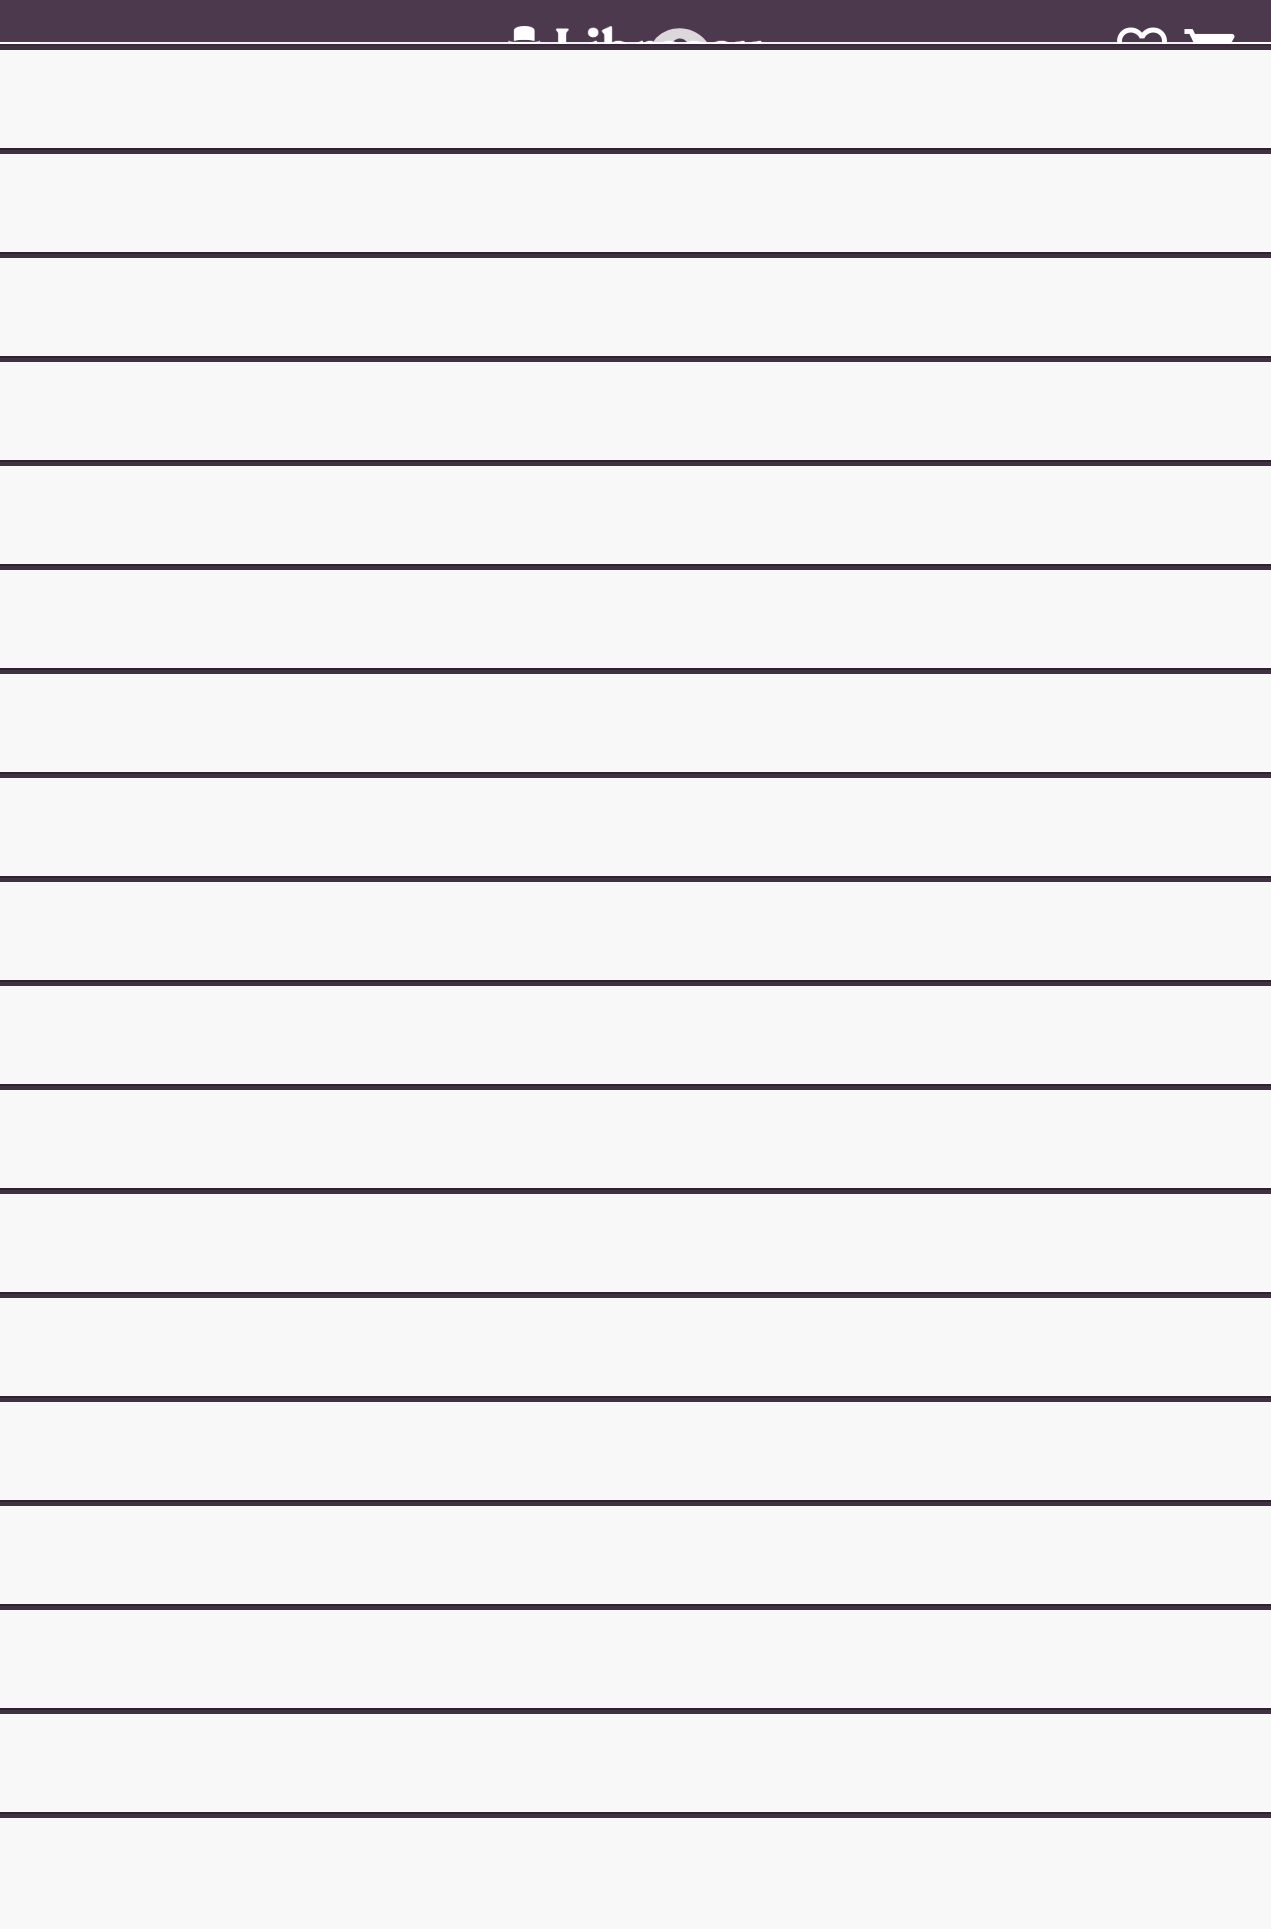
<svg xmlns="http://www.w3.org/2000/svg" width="1271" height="1929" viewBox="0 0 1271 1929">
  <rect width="100%" height="100%" fill="#4c394e"/>
  <rect x="0" y="42" width="1271" height="2" fill="#fff"/>
  <rect x="40" y="42" width="1192" height="2" fill="#edeff1"/>
  <path d="M660 75C670 90 690 90 700 75C700 68 686 65 680 65C674 65 660 68 660 75ZM687 42C678 32 664 46 673 56C682 65 696 51 687 42ZM656 38C679 16 716 34 713 65C712 73 709 80 704 86C681 108 644 90 647 59C648 51 651 44 656 38Z" fill="#ffffffcc"/>
  <image x="508" y="26" width="254" height="18" href="images/1.png"/>
  <image x="1117" y="27" width="50" height="17" href="images/2.png"/>
  <image x="1184" y="29" width="51" height="15" href="images/3.png"/>
  <rect x="0" y="44" width="1271" height="2" fill="#3a2a3c"/>
  <rect x="0" y="50" width="1271" height="1879" fill="#f8f8f8"/>
  <rect x="0" y="148" width="1271" height="2" fill="#2f2330"/>
  <rect x="0" y="46" width="1271" height="4" fill="#403042"/>
  <rect x="0" y="252" width="1271" height="2" fill="#2f2330"/>
  <rect x="0" y="150" width="1271" height="4" fill="#403042"/>
  <rect x="0" y="356" width="1271" height="2" fill="#2f2330"/>
  <rect x="0" y="254" width="1271" height="4" fill="#403042"/>
  <rect x="0" y="460" width="1271" height="2" fill="#2f2330"/>
  <rect x="0" y="358" width="1271" height="4" fill="#403042"/>
  <rect x="0" y="564" width="1271" height="2" fill="#2f2330"/>
  <rect x="0" y="462" width="1271" height="4" fill="#403042"/>
  <rect x="0" y="668" width="1271" height="2" fill="#2f2330"/>
  <rect x="0" y="566" width="1271" height="4" fill="#403042"/>
  <rect x="0" y="772" width="1271" height="2" fill="#2f2330"/>
  <rect x="0" y="670" width="1271" height="4" fill="#403042"/>
  <rect x="0" y="876" width="1271" height="2" fill="#2f2330"/>
  <rect x="0" y="774" width="1271" height="4" fill="#403042"/>
  <rect x="0" y="980" width="1271" height="2" fill="#2f2330"/>
  <rect x="0" y="878" width="1271" height="4" fill="#403042"/>
  <rect x="0" y="1084" width="1271" height="2" fill="#2f2330"/>
  <rect x="0" y="982" width="1271" height="4" fill="#403042"/>
  <rect x="0" y="1188" width="1271" height="2" fill="#2f2330"/>
  <rect x="0" y="1086" width="1271" height="4" fill="#403042"/>
  <rect x="0" y="1292" width="1271" height="2" fill="#2f2330"/>
  <rect x="0" y="1190" width="1271" height="4" fill="#403042"/>
  <rect x="0" y="1396" width="1271" height="2" fill="#2f2330"/>
  <rect x="0" y="1294" width="1271" height="4" fill="#403042"/>
  <rect x="0" y="1500" width="1271" height="2" fill="#2f2330"/>
  <rect x="0" y="1398" width="1271" height="4" fill="#403042"/>
  <rect x="0" y="1604" width="1271" height="2" fill="#2f2330"/>
  <rect x="0" y="1502" width="1271" height="4" fill="#403042"/>
  <rect x="0" y="1708" width="1271" height="2" fill="#2f2330"/>
  <rect x="0" y="1606" width="1271" height="4" fill="#403042"/>
  <rect x="0" y="1812" width="1271" height="2" fill="#2f2330"/>
  <rect x="0" y="1710" width="1271" height="4" fill="#403042"/>
  <rect x="0" y="1814" width="1271" height="4" fill="#403042"/>
</svg>
